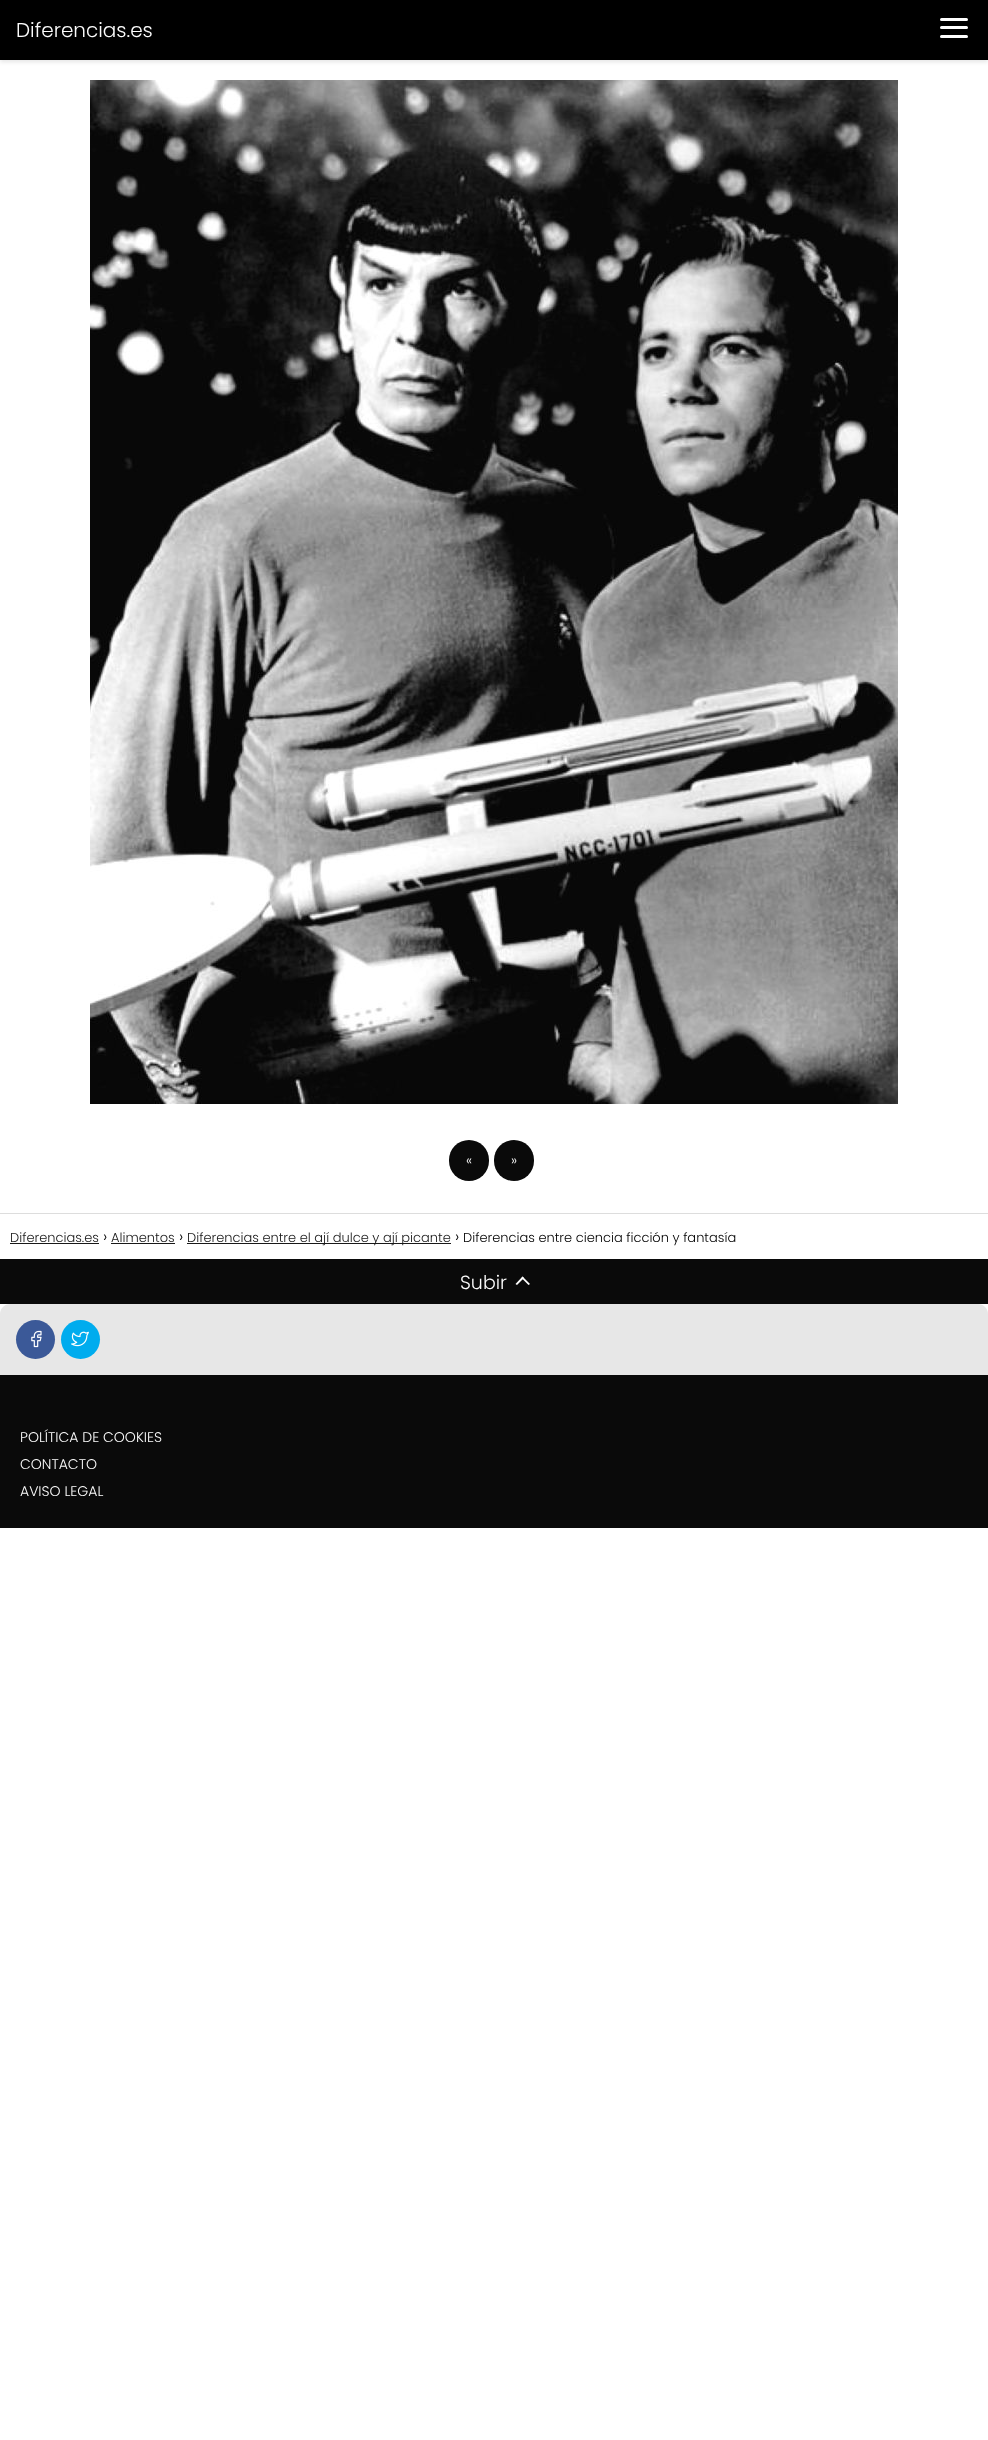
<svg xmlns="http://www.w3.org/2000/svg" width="988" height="2440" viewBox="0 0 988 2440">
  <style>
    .t1 { font: 300 20px Poppins; fill: #fcfcfc; }
    .t2 { font: 300 14px Poppins; fill: #fcfcfc; }
    .t3 { font: 300 13px Poppins; fill: #181818; }
    .t4 { font: 300 16px Poppins; fill: #000; }
    .t5 { font: 300 13px Poppins; fill: #000; }
    .t6 { font: 300 19px Poppins; fill: #fcfcfc; }
  </style>
  <rect width="100%" height="100%" fill="#fff"/>
  <rect x="0" y="2" width="988" height="60" fill="#0000001a" filter="blur(2px)"/>
  <rect x="0" y="0" width="988" height="60" fill="#000"/>
  <text x="16" y="37" class="t1">Diferencias.es</text>
  <rect x="940" y="18" width="28" height="3" rx="1.5" fill="#fff"/>
  <rect x="940" y="26" width="28" height="3" rx="1.5" fill="#fff"/>
  <rect x="940" y="35" width="28" height="3" rx="1.5" fill="#fff"/>
  <image x="90" y="80" width="808" height="1024" href="images/1.png"/>
  <rect x="449" y="1140" width="40" height="41" rx="20" fill="#0a0a0a"/>
  <text x="466" y="1165" class="t2">«</text>
  <rect x="494" y="1140" width="40" height="41" rx="20" fill="#0a0a0a"/>
  <text x="511" y="1165" class="t2">»</text>
  <rect x="0" y="1213" width="988" height="1" fill="#ddd"/>
  <text x="10" y="1242" class="t3">Diferencias.es</text>
  <rect x="10" y="1243" width="89" height="1" fill="#181818"/>
  <text x="103" y="1242" class="t4">›</text>
  <text x="111" y="1242" class="t3">Alimentos</text>
  <rect x="111" y="1243" width="64" height="1" fill="#181818"/>
  <text x="179" y="1242" class="t4">›</text>
  <rect x="187" y="1243" width="264" height="1" fill="#181818"/>
  <text x="187" y="1242" class="t3">Diferencias entre el ají dulce y ají picante</text>
  <text x="455" y="1242" class="t4">›</text>
  <text x="463" y="1242" class="t5">Diferencias entre ciencia ficción y fantasía</text>
  <rect x="0" y="1259" width="988" height="45" fill="#0a0a0a"/>
  <text x="460" y="1289" class="t6">Subir</text>
  <path d="M517 1285L515.5 1284L522.5 1276.5L524 1278Z" fill="#fff"/>
  <path d="M528.5 1285L521.5 1278L522.5 1276.5L530 1284Z" fill="#fff"/>
  <path d="M10 1304H978C983.5 1304 988 1308.5 988 1314V1375H0V1314C0 1308.5 4.5 1304 10 1304Z" fill="#e7e7e7"/>
  <circle cx="35.5" cy="1339.5" r="19.5" fill="#3b5998"/>
  <image x="31" y="1330" width="11" height="18" href="images/2.png"/>
  <circle cx="80.5" cy="1339.5" r="19.5" fill="#00acee"/>
  <image x="71" y="1331" width="18" height="16" href="images/3.png"/>
  <rect x="0" y="1375" width="988" height="153" fill="#0a0a0a"/>
  <text x="20" y="1442" class="t2">POLÍTICA DE COOKIES</text>
  <text x="20" y="1469" class="t2">CONTACTO</text>
  <text x="20" y="1496" class="t2">AVISO LEGAL</text>
</svg>
